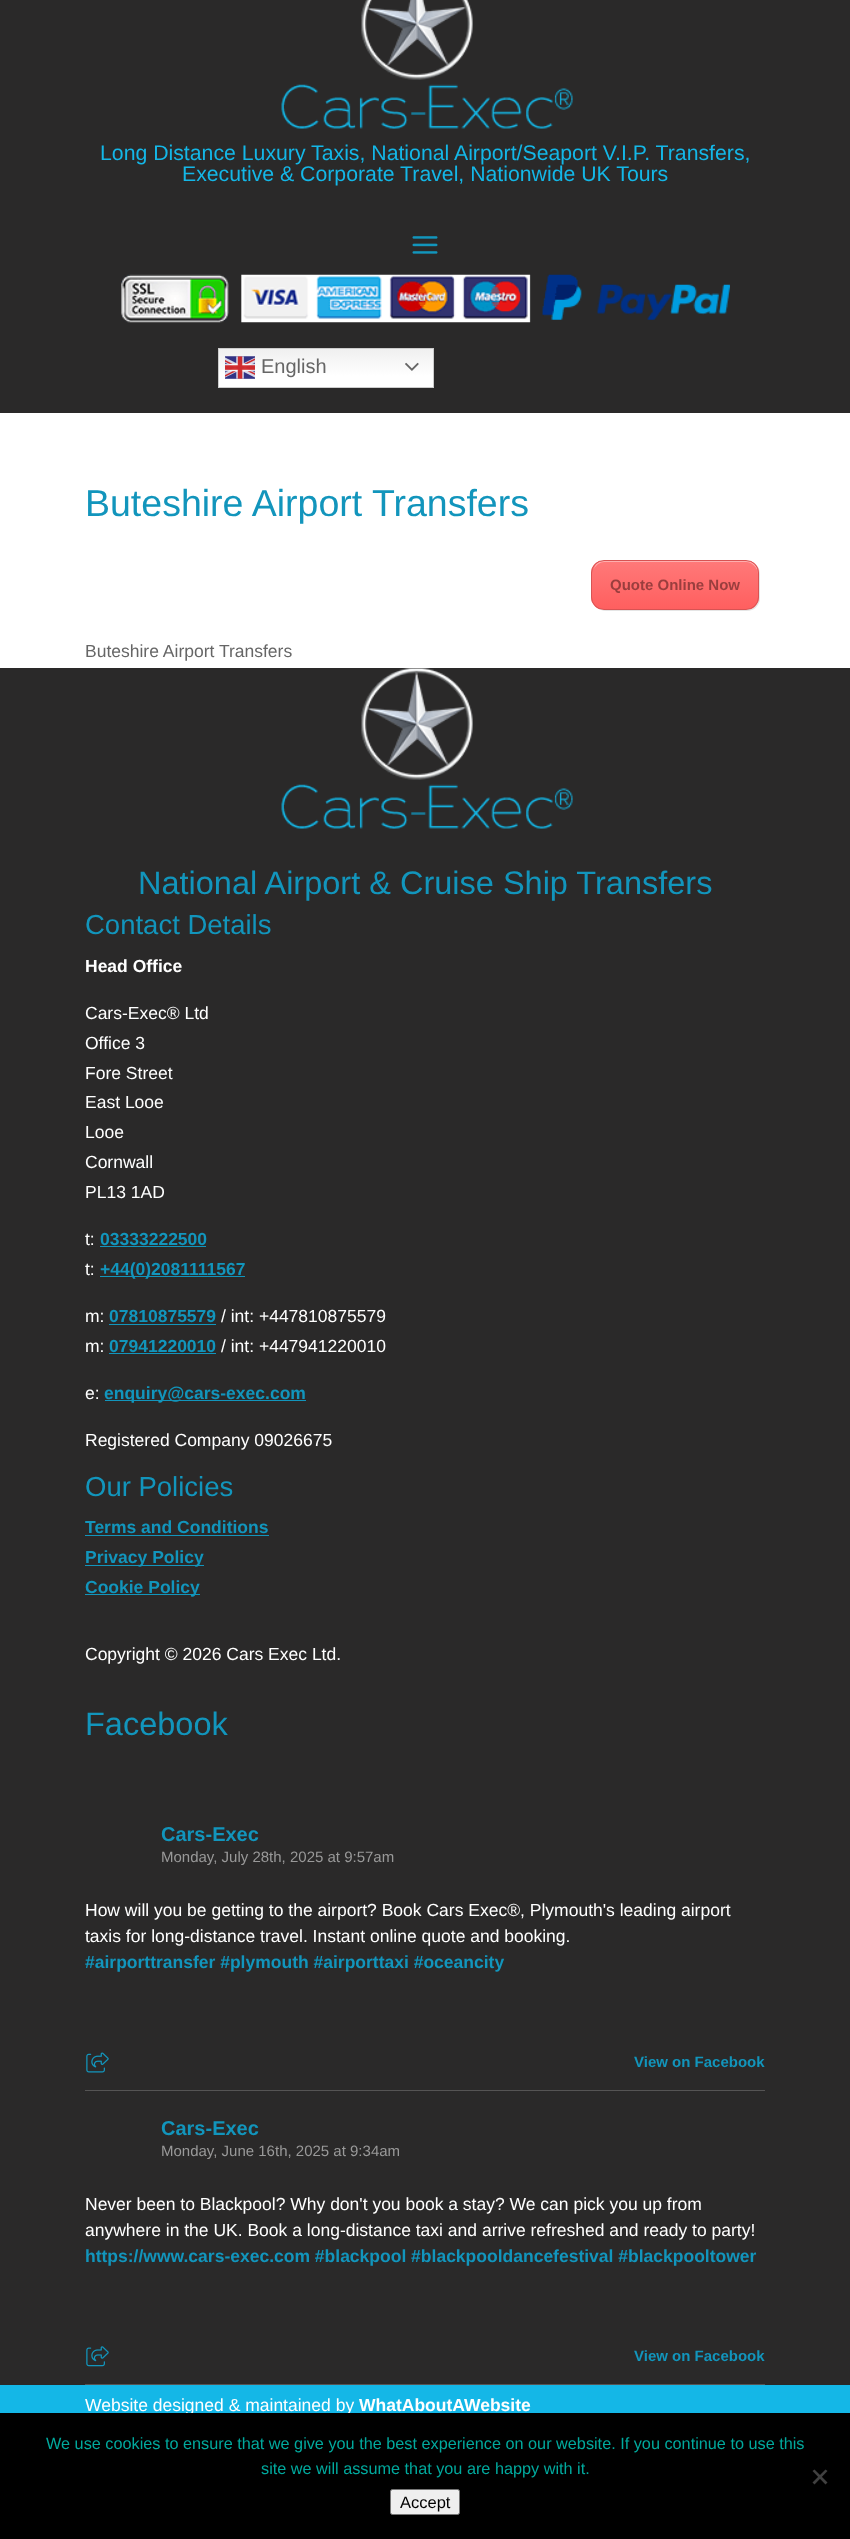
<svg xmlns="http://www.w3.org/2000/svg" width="850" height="2539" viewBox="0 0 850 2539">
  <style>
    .t1 { font: 21.25px Liberation Sans; fill: #14b7e7; }
    .t2 { font: 20px Liberation Sans; fill: #666; }
    .t3 { font: 37.5px Liberation Sans; fill: #1295bc; }
    .t4 { font: bold 15px Liberation Sans; fill: #9a3e3e; }
    .t5 { font: 17.5px Liberation Sans; fill: #666; }
    .t6 { font: 32.5px Liberation Sans; fill: #1295bc; }
    .t7 { font: 27.5px Liberation Sans; fill: #1295bc; }
    .t8 { font: bold 17.5px Liberation Sans; fill: #fff; }
    .t9 { font: 17.5px Liberation Sans; fill: #fff; }
    .t10 { font: bold 17.5px Liberation Sans; fill: #1295bc; }
    .t11 { font: bold 20px Liberation Sans; fill: #1295bc; }
    .t12 { font: 15px Liberation Sans; fill: #999; }
    .t13 { font: bold 15px Liberation Sans; fill: #1295bc; }
    .t14 { font: 16.25px Liberation Sans; fill: #00a99d; }
    .t15 { font: 16.5px Liberation Sans; fill: #000; }
  </style>
  <defs>
    <linearGradient id="g1" gradientUnits="userSpaceOnUse" x1="326" y1="348" x2="326" y2="388"><stop offset="0" stop-color="#efefef"/><stop offset="0.7" stop-color="#fff"/></linearGradient>
    <clipPath id="clip1"><rect x="591" y="560" width="168" height="50" rx="13"/></clipPath>
    <linearGradient id="g2" gradientUnits="userSpaceOnUse" x1="675" y1="561" x2="675" y2="609"><stop offset="0" stop-color="#ff7979"/><stop offset="1" stop-color="#ff5f5f"/></linearGradient>
  </defs>
  <rect width="100%" height="100%" fill="#fff"/>
  <rect x="0" y="0" width="850" height="413" fill="#2a2929"/>
  <image x="281" y="0" width="292" height="129" href="images/1.png"/>
  <text x="100" y="160" class="t1">Long Distance Luxury Taxis, National Airport/Seaport V.I.P. Transfers,</text>
  <text x="182" y="181" class="t1">Executive &amp; Corporate Travel, Nationwide UK Tours</text>
  <image x="412" y="236" width="26" height="18" href="images/2.png"/>
  <image x="121" y="274" width="609" height="49" href="images/3.png"/>
  <rect x="219" y="349" width="214" height="38" fill="url(#g1)"/>
  <rect x="218.5" y="348.5" width="215" height="39" fill="none" stroke="#ccc"/>
  <image x="225" y="356" width="30" height="23" href="images/4.png"/>
  <text x="261" y="373" class="t2">English</text>
  <image x="405" y="362" width="14" height="9" href="images/5.png"/>
  <text x="85" y="516" class="t3">Buteshire Airport Transfers</text>
  <rect x="593" y="561" width="167" height="50" rx="13" fill="#0000001a" filter="blur(0.5px)"/>
  <g clip-path="url(#clip1)">
    <rect x="591" y="561" width="168" height="48" fill="url(#g2)"/>
  </g>
  <path d="M604 562H746C752 562 758 568 758 574V572C758 566 753 561 747 561H604C599 561 595 564 594 569C596 565 600 562 604 562Z" fill="#ffffff66"/>
  <rect x="591.5" y="560.5" width="167" height="49" rx="12.5" fill="none" stroke="#d85353"/>
  <text x="610" y="590" class="t4">Quote Online Now</text>
  <text x="85" y="657" class="t5">Buteshire Airport Transfers</text>
  <rect x="0" y="668" width="850" height="1717" fill="#2a2929"/>
  <image x="281" y="668" width="292" height="161" href="images/6.png"/>
  <text x="138" y="894" class="t6">National Airport &amp; Cruise Ship Transfers</text>
  <text x="85" y="934" class="t7">Contact Details</text>
  <text x="85" y="972" class="t8">Head Office</text>
  <text x="85" y="1019" class="t9">Cars-Exec® Ltd</text>
  <text x="85" y="1049" class="t9">Office 3</text>
  <text x="85" y="1079" class="t9">Fore Street</text>
  <text x="85" y="1108" class="t9">East Looe</text>
  <text x="85" y="1138" class="t9">Looe</text>
  <text x="85" y="1168" class="t9">Cornwall</text>
  <text x="85" y="1198" class="t9">PL13 1AD</text>
  <text x="85" y="1245" class="t9">t:</text>
  <text x="100" y="1245" class="t10">03333222500</text>
  <rect x="100" y="1246" width="106" height="1" fill="#1295bc"/>
  <text x="85" y="1275" class="t9">t:</text>
  <rect x="100" y="1276" width="145" height="1" fill="#1295bc"/>
  <text x="100" y="1275" class="t10">+44(0)2081111567</text>
  <text x="85" y="1322" class="t9">m:</text>
  <text x="109" y="1322" class="t10">07810875579</text>
  <rect x="109" y="1324" width="107" height="1" fill="#1295bc"/>
  <text x="221" y="1322" class="t9">/ int: +447810875579</text>
  <text x="85" y="1352" class="t9">m:</text>
  <text x="109" y="1352" class="t10">07941220010</text>
  <rect x="109" y="1353" width="107" height="1" fill="#1295bc"/>
  <text x="221" y="1352" class="t9">/ int: +447941220010</text>
  <text x="85" y="1399" class="t9">e:</text>
  <rect x="105" y="1400" width="201" height="1" fill="#1295bc"/>
  <text x="104" y="1399" class="t10">enquiry@cars-exec.com</text>
  <text x="85" y="1446" class="t9">Registered Company 09026675</text>
  <text x="85" y="1496" class="t7">Our Policies</text>
  <text x="85" y="1533" class="t10">Terms and Conditions</text>
  <rect x="85" y="1535" width="184" height="1" fill="#1295bc"/>
  <rect x="85" y="1565" width="119" height="1" fill="#1295bc"/>
  <text x="85" y="1563" class="t10">Privacy Policy</text>
  <rect x="85" y="1594" width="115" height="1" fill="#1295bc"/>
  <text x="85" y="1593" class="t10">Cookie Policy</text>
  <text x="85" y="1660" class="t9">Copyright © 2026 Cars Exec Ltd.</text>
  <text x="85" y="1735" class="t6">Facebook</text>
  <rect x="85" y="2090" width="680" height="1" fill="#555454"/>
  <text x="161" y="1841" class="t11">Cars-Exec</text>
  <text x="161" y="1862" class="t12">Monday, July 28th, 2025 at 9:57am</text>
  <text x="85" y="1916" class="t9">How will you be getting to the airport? Book Cars Exec®, Plymouth's leading airport</text>
  <text x="85" y="1942" class="t9">taxis for long-distance travel. Instant online quote and booking.</text>
  <text x="85" y="1968" class="t10">#airporttransfer #plymouth #airporttaxi #oceancity</text>
  <image x="86" y="2052" width="23" height="21" href="images/7.png"/>
  <text x="634" y="2067" class="t13">View on Facebook</text>
  <rect x="85" y="2384" width="680" height="1" fill="#555454"/>
  <text x="161" y="2135" class="t11">Cars-Exec</text>
  <text x="161" y="2156" class="t12">Monday, June 16th, 2025 at 9:34am</text>
  <text x="85" y="2210" class="t9">Never been to Blackpool? Why don't you book a stay? We can pick you up from</text>
  <text x="85" y="2236" class="t9">anywhere in the UK. Book a long-distance taxi and arrive refreshed and ready to party!</text>
  <text x="85" y="2262" class="t10">https://www.cars-exec.com #blackpool #blackpooldancefestival #blackpooltower</text>
  <image x="86" y="2346" width="23" height="21" href="images/8.png"/>
  <text x="634" y="2361" class="t13">View on Facebook</text>
  <rect x="0" y="2385" width="850" height="28" fill="#14b7e7"/>
  <text x="85" y="2411" class="t9">Website designed &amp; maintained by</text>
  <text x="359" y="2411" class="t8">WhatAboutAWebsite</text>
  <rect x="0" y="2413" width="850" height="126" fill="#000"/>
  <text x="46" y="2449" class="t14">We use cookies to ensure that we give you the best experience on our website. If you continue to use this</text>
  <text x="261" y="2474" class="t14">site we will assume that you are happy with it.</text>
  <path d="M825.5 2469.5L827.5 2471L814.5 2484.5L812.5 2482.5Z" fill="#404040"/>
  <path d="M812.5 2471L814.5 2469.5L827.5 2482.5L825.5 2484.5Z" fill="#404040"/>
  <rect x="390.5" y="2489.5" width="69" height="25" rx="2" fill="#efefef" stroke="#767676"/>
  <text x="400" y="2508" class="t15">Accept</text>
</svg>
